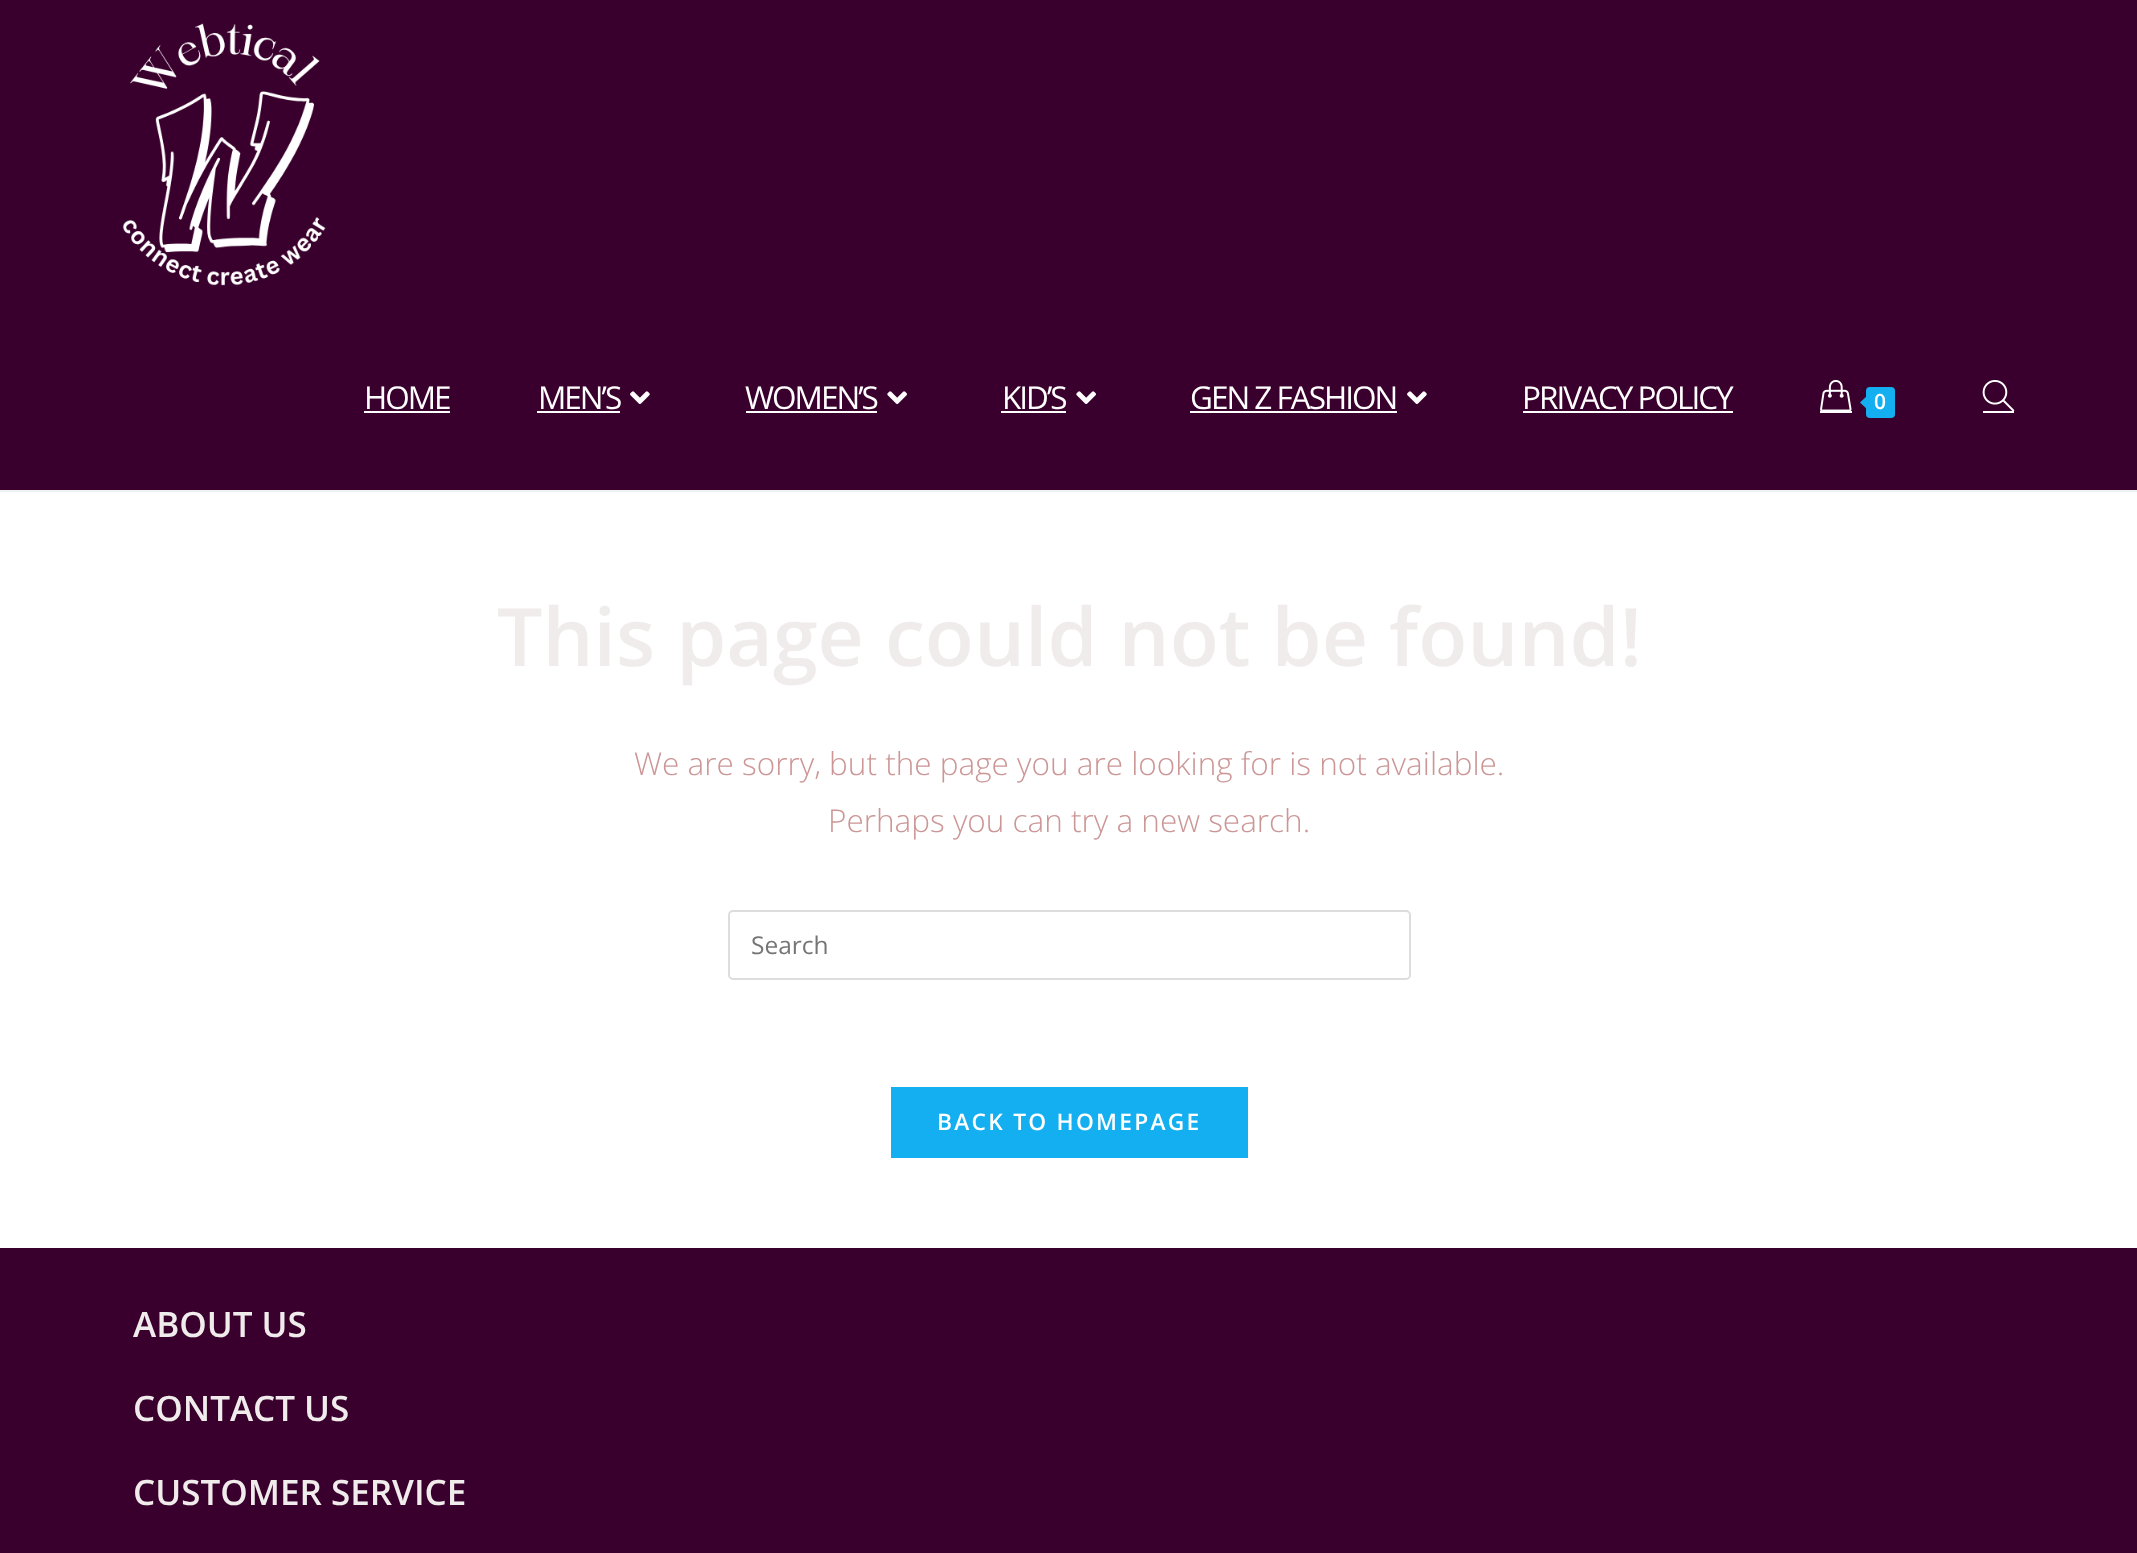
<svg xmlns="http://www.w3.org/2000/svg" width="2137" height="1553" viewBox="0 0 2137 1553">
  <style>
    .t1 { font: 31.5px Open Sans; letter-spacing: -2px; fill: #fff; }
    .t2 { font: 600 21px Open Sans; fill: #fff; }
    .t3 { font: 600 80.5px Open Sans; fill: #f0ecec; }
    .t4 { font: 300 31.5px Open Sans; fill: #cc9696; }
    .t5 { font: 24.5px Open Sans; fill: #757575; }
    .t6 { font: 600 22.75px Open Sans; letter-spacing: 2.25px; fill: #fff; }
    .t7 { font: 600 35px Open Sans; fill: #f0ecec; }
  </style>
  <rect width="100%" height="100%" fill="#fff"/>
  <rect x="0" y="0" width="2137" height="490" fill="#3a002d"/>
  <rect x="0" y="490" width="2137" height="2" fill="#f1f1f1"/>
  <image x="122" y="23" width="204" height="263" href="images/1.png"/>
  <text x="364" y="409" class="t1">HOME</text>
  <rect x="364" y="411" width="86" height="2" fill="#fff"/>
  <text x="538" y="409" class="t1">MEN’S</text>
  <rect x="537" y="411" width="83" height="2" fill="#fff"/>
  <image x="630" y="391" width="20" height="13" href="images/2.png"/>
  <text x="745" y="409" class="t1">WOMEN’S</text>
  <rect x="746" y="411" width="131" height="2" fill="#fff"/>
  <image x="887" y="391" width="20" height="13" href="images/3.png"/>
  <text x="1002" y="409" class="t1">KID’S</text>
  <rect x="1001" y="411" width="65" height="2" fill="#fff"/>
  <image x="1076" y="391" width="20" height="13" href="images/3.png"/>
  <text x="1190" y="409" class="t1">GEN Z FASHION</text>
  <rect x="1190" y="411" width="207" height="2" fill="#fff"/>
  <image x="1407" y="391" width="20" height="13" href="images/2.png"/>
  <text x="1522" y="409" class="t1">PRIVACY POLICY</text>
  <rect x="1523" y="411" width="210" height="2" fill="#fff"/>
  <image x="1820" y="379" width="32" height="32" href="images/4.png"/>
  <rect x="1866" y="387" width="29" height="31" rx="4" fill="#13aff0"/>
  <path d="M1869 394V411L1860 402.5Z" fill="#13aff0"/>
  <text x="1874" y="409" class="t2">0</text>
  <rect x="1820" y="411" width="32" height="2" fill="#fff"/>
  <image x="1982" y="380" width="33" height="31" href="images/5.png"/>
  <rect x="1983" y="411" width="31" height="2" fill="#fff"/>
  <text x="497" y="666" class="t3">This page could not be found!</text>
  <text x="634" y="775" class="t4">We are sorry, but the page you are looking for is not available.</text>
  <text x="828" y="832" class="t4">Perhaps you can try a new search.</text>
  <rect x="729" y="911" width="681" height="68" rx="4" fill="none" stroke="#ddd" stroke-width="2"/>
  <text x="751" y="954" class="t5">Search</text>
  <rect x="891" y="1087" width="357" height="71" fill="#13aff0"/>
  <text x="937" y="1130" class="t6">BACK TO HOMEPAGE</text>
  <rect x="0" y="1248" width="2137" height="305" fill="#3a002d"/>
  <text x="133" y="1337" class="t7">ABOUT US</text>
  <text x="133" y="1421" class="t7">CONTACT US</text>
  <text x="133" y="1505" class="t7">CUSTOMER SERVICE</text>
</svg>
